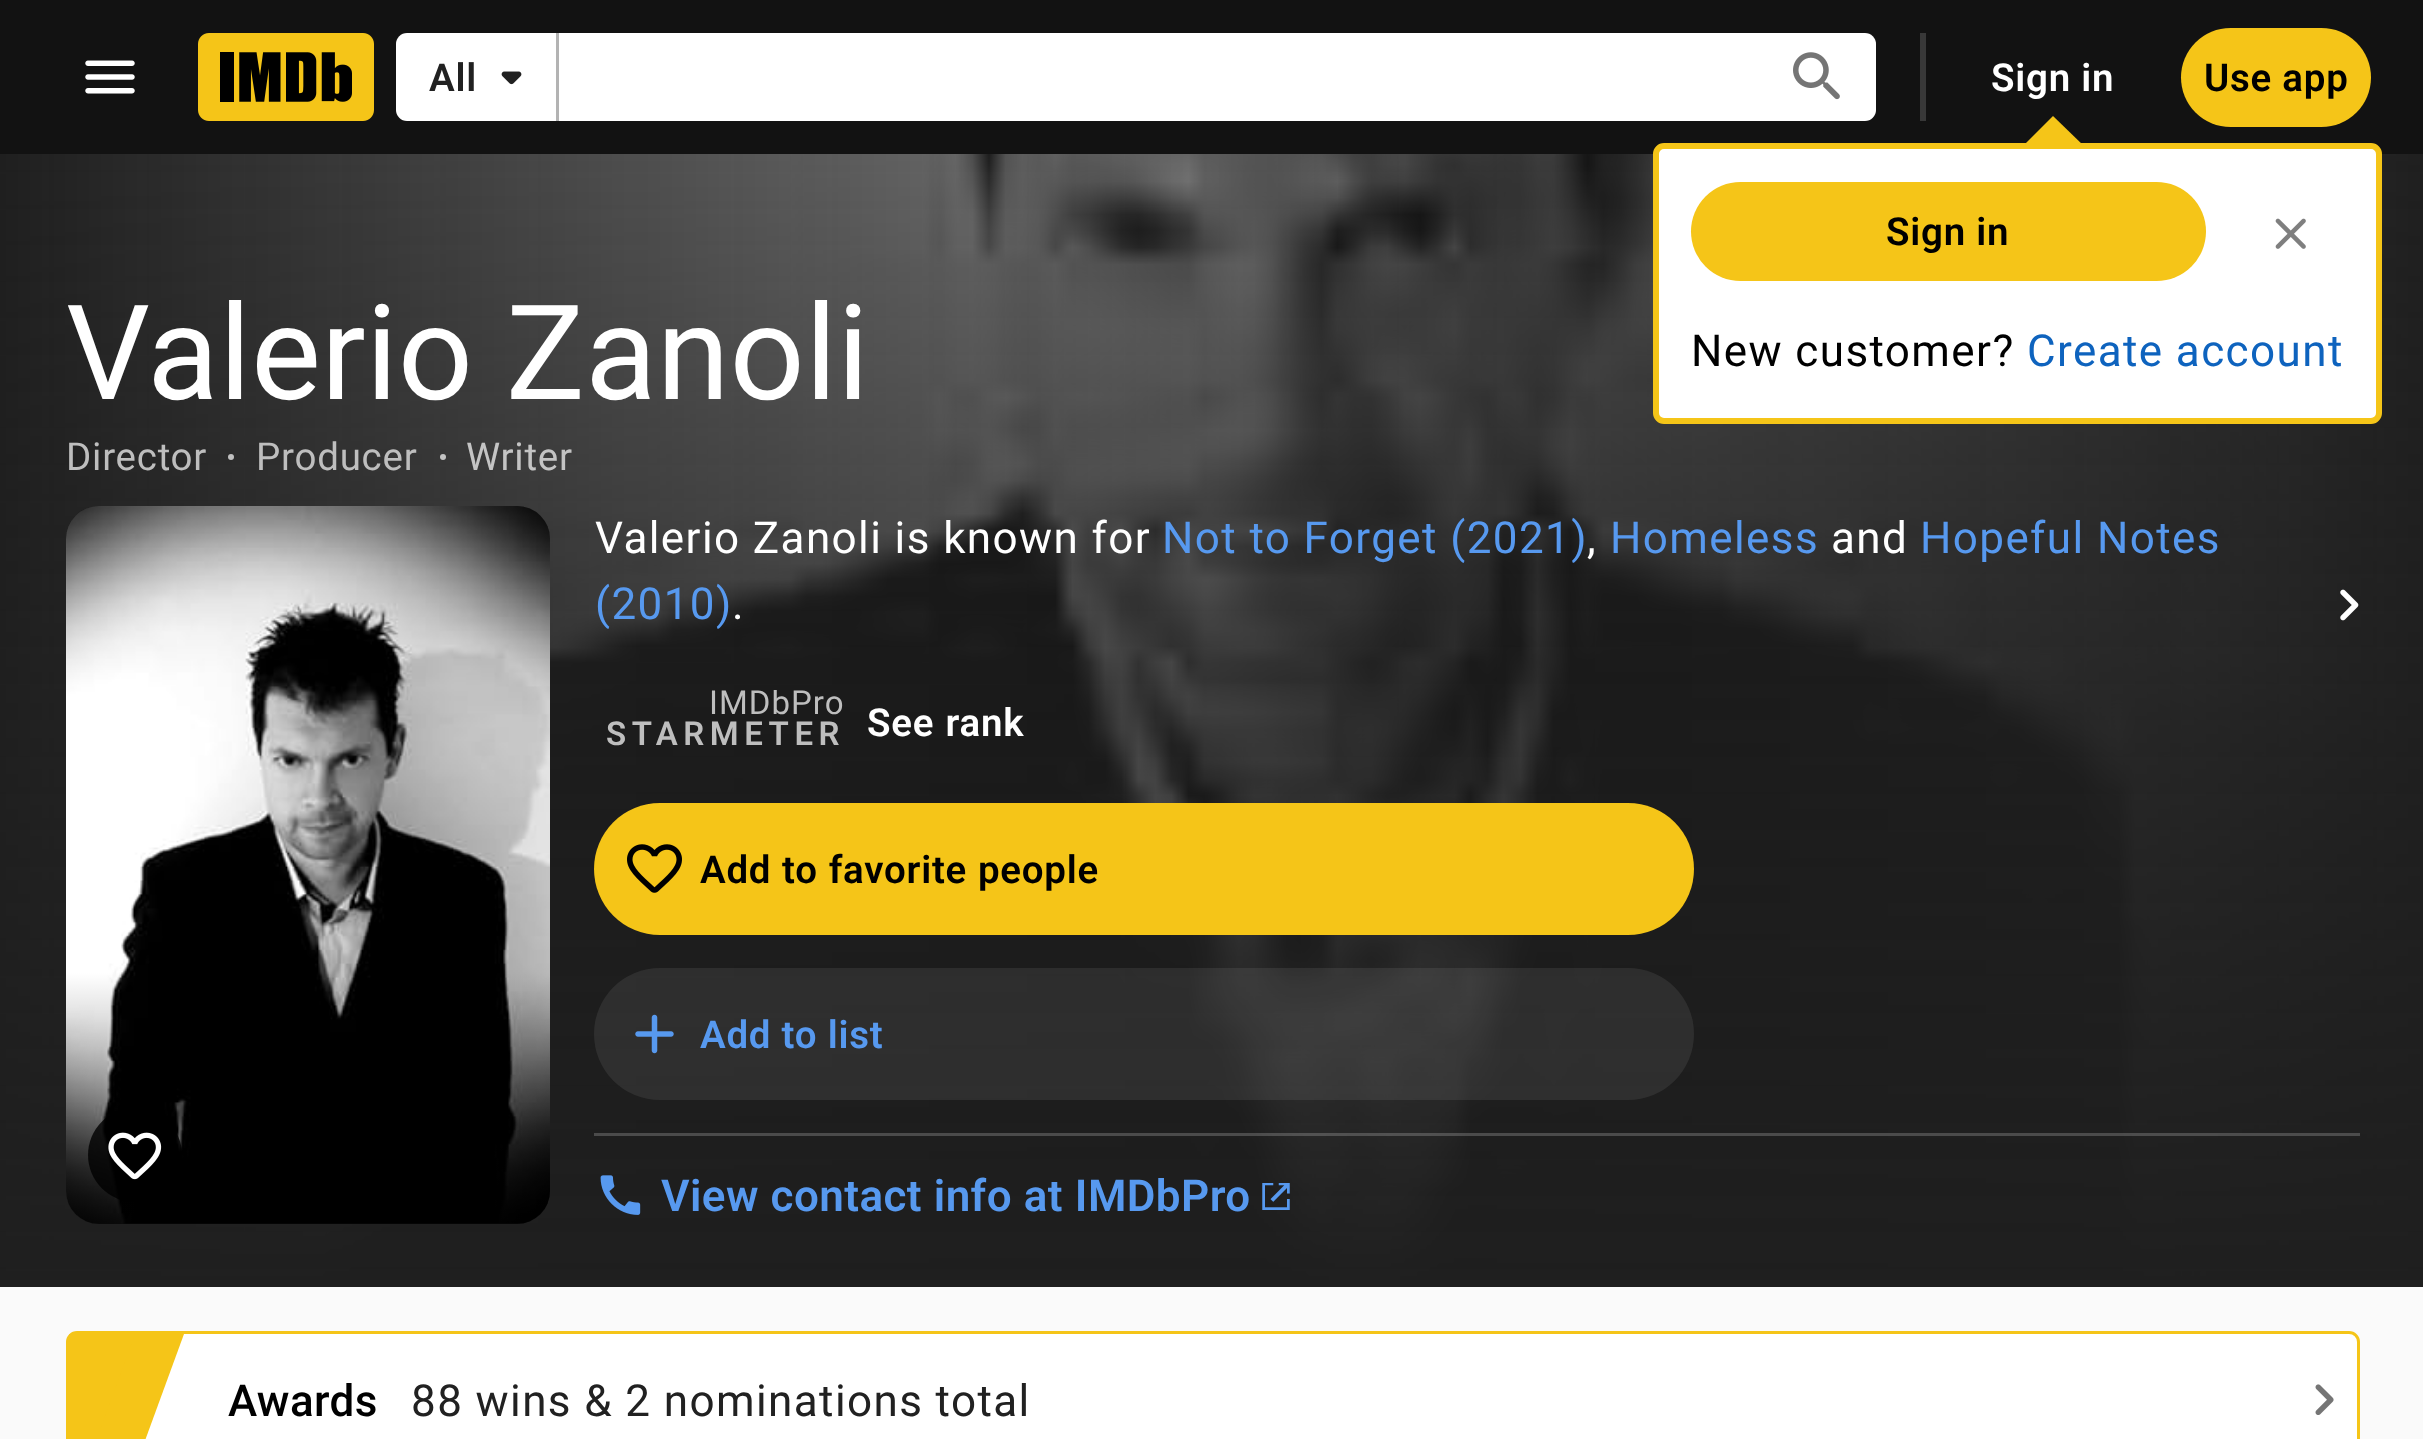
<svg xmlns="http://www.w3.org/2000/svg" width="2423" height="1439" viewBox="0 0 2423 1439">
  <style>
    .t1 { font: 600 38.5px Roboto; letter-spacing: 0.75px; fill: #212121; }
    .t2 { font: 600 38.5px Roboto; letter-spacing: 0.75px; fill: #fff; }
    .t3 { font: 600 38.5px Roboto; letter-spacing: 0.75px; fill: #000; }
    .t4 { font: 44px Roboto; letter-spacing: 1.4px; fill: #000; }
    .t5 { font: 44px Roboto; letter-spacing: 1.4px; fill: #0e63be; }
    .t6 { font: 132px Roboto; fill: #fff; }
    .t7 { font: 38.5px Roboto; letter-spacing: 0.75px; fill: #bebebe; }
    .t8 { font: 38.5px Roboto; letter-spacing: 0.75px; fill: #c4c4c4; }
    .t9 { font: 44px Roboto; letter-spacing: 1.4px; fill: #fff; }
    .t10 { font: 44px Roboto; letter-spacing: 1.4px; fill: #5799ef; }
    .t11 { font: 33px Roboto; letter-spacing: 1px; fill: #bebebe; }
    .t12 { font: 600 33px Roboto; letter-spacing: 5.5px; fill: #bebebe; }
    .t13 { font: 600 38.5px Roboto; letter-spacing: 0.75px; fill: #5799ef; }
    .t14 { font: 600 44px Roboto; letter-spacing: 0.4px; fill: #5799ef; }
    .t15 { font: 500 44px Roboto; letter-spacing: 0.4px; fill: #000; }
    .t16 { font: 44px Roboto; letter-spacing: 1.4px; fill: #212121; }
  </style>
  <defs>
    <linearGradient id="g1" gradientUnits="userSpaceOnUse" x1="308" y1="506" x2="308" y2="1224"><stop offset="0" stop-color="#000" stop-opacity="0"/><stop offset="0.65" stop-color="#000" stop-opacity="0"/><stop offset="0.83" stop-color="#000" stop-opacity="0.35"/><stop offset="1" stop-color="#000" stop-opacity="0.75"/></linearGradient>
    <clipPath id="clip1"><rect x="605" y="690" width="239" height="61"/></clipPath>
  </defs>
  <rect width="100%" height="100%" fill="#fff"/>
  <rect x="0" y="0" width="2423" height="154" fill="#121212"/>
  <image x="85" y="60" width="50" height="34" href="images/1.png"/>
  <image x="198" y="33" width="176" height="88" href="images/2.png"/>
  <rect x="396" y="33" width="1480" height="88" rx="11" fill="#fff"/>
  <rect x="556" y="33" width="3" height="88" fill="#b3b3b3"/>
  <text x="429" y="91" class="t1">All</text>
  <image x="501" y="71" width="21" height="14" href="images/3.png"/>
  <image x="1793" y="52" width="47" height="48" href="images/4.png"/>
  <rect x="1920" y="33" width="6" height="88" fill="#383838"/>
  <text x="1991" y="91" class="t2">Sign in</text>
  <image x="0" y="154" width="2423" height="1133" href="images/6.png"/>
  <rect x="1656" y="146" width="723" height="275" rx="8" fill="#fff" stroke="#f5c518" stroke-width="6"/>
  <path d="M2021 148L2053 116L2086 148Z" fill="#f5c518"/>
  <rect x="1691" y="182" width="515" height="99" rx="49.5" fill="#f5c518"/>
  <text x="1886" y="245" class="t3">Sign in</text>
  <image x="2275" y="218" width="31" height="31" href="images/5.png"/>
  <text x="1691" y="366" class="t4">New customer?</text>
  <text x="2027" y="366" class="t5">Create account</text>
  <rect x="2181" y="28" width="190" height="99" rx="49.5" fill="#f5c518"/>
  <text x="2204" y="91" class="t3">Use app</text>
  <text x="66" y="399" class="t6">Valerio Zanoli</text>
  <text x="66" y="470" class="t7">Director</text>
  <circle cx="231" cy="457" r="3" fill="#c0c0c0"/>
  <text x="256" y="470" class="t7">Producer</text>
  <circle cx="443" cy="457" r="3" fill="#c3c3c3"/>
  <text x="466" y="470" class="t8">Writer</text>
  <rect x="66" y="506" width="484" height="718" rx="33" fill="#121212"/>
  <rect x="66" y="506" width="484" height="718" rx="33" fill="#ffffff1a"/>
  <image x="66" y="506" width="484" height="718" href="images/7.png"/>
  <rect x="66" y="506" width="484" height="718" rx="33" fill="url(#g1)"/>
  <circle cx="135" cy="1155" r="47" fill="#000000cc"/>
  <image x="108" y="1132" width="54" height="48" href="images/8.png"/>
  <text x="595" y="553" class="t9">Valerio Zanoli is known for</text>
  <text x="1162" y="553" class="t10">Not to Forget (2021)</text>
  <text x="1587" y="553" class="t9">,</text>
  <text x="1610" y="553" class="t10">Homeless</text>
  <text x="1831" y="553" class="t9">and</text>
  <text x="1920" y="553" class="t10">Hopeful Notes</text>
  <text x="595" y="619" class="t10">(2010)</text>
  <text x="732" y="619" class="t9">.</text>
  <image x="2340" y="589" width="19" height="32" href="images/9.png"/>
  <g clip-path="url(#clip1)">
    <text x="709" y="714" class="t11">IMDbPro</text>
  </g>
  <text x="606" y="745" class="t12">STARMETER</text>
  <text x="867" y="736" word-spacing="1" class="t2">See rank</text>
  <rect x="594" y="803" width="1100" height="132" rx="66" fill="#f5c518"/>
  <image x="627" y="844" width="55" height="49" href="images/10.png"/>
  <text x="700" y="883" word-spacing="0.5" class="t3">Add to favorite people</text>
  <rect x="594" y="968" width="1100" height="132" rx="66" fill="#ffffff14"/>
  <image x="635" y="1014" width="39" height="40" href="images/11.png"/>
  <text x="700" y="1048" class="t13">Add to list</text>
  <rect x="594" y="1133" width="1766" height="3" fill="#ffffff33"/>
  <image x="600" y="1175" width="41" height="40" href="images/12.png"/>
  <text x="661" y="1211" word-spacing="0.5" class="t14">View contact info at IMDbPro</text>
  <image x="1262" y="1183" width="28" height="27" href="images/13.png"/>
  <rect x="0" y="1287" width="2423" height="152" fill="#fafafa"/>
  <rect x="67.5" y="1332.5" width="2291" height="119" rx="9.5" fill="#fff" stroke="#f5c518" stroke-width="3"/>
  <rect x="69" y="1334" width="66" height="105" fill="#f5c518"/>
  <path d="M135 1334H184L135 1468H86Z" fill="#f5c518"/>
  <text x="228" y="1416" class="t15">Awards</text>
  <text x="411" y="1416" class="t16">88 wins &amp; 2 nominations total</text>
  <image x="2315" y="1384" width="19" height="31" href="images/14.png"/>
</svg>
